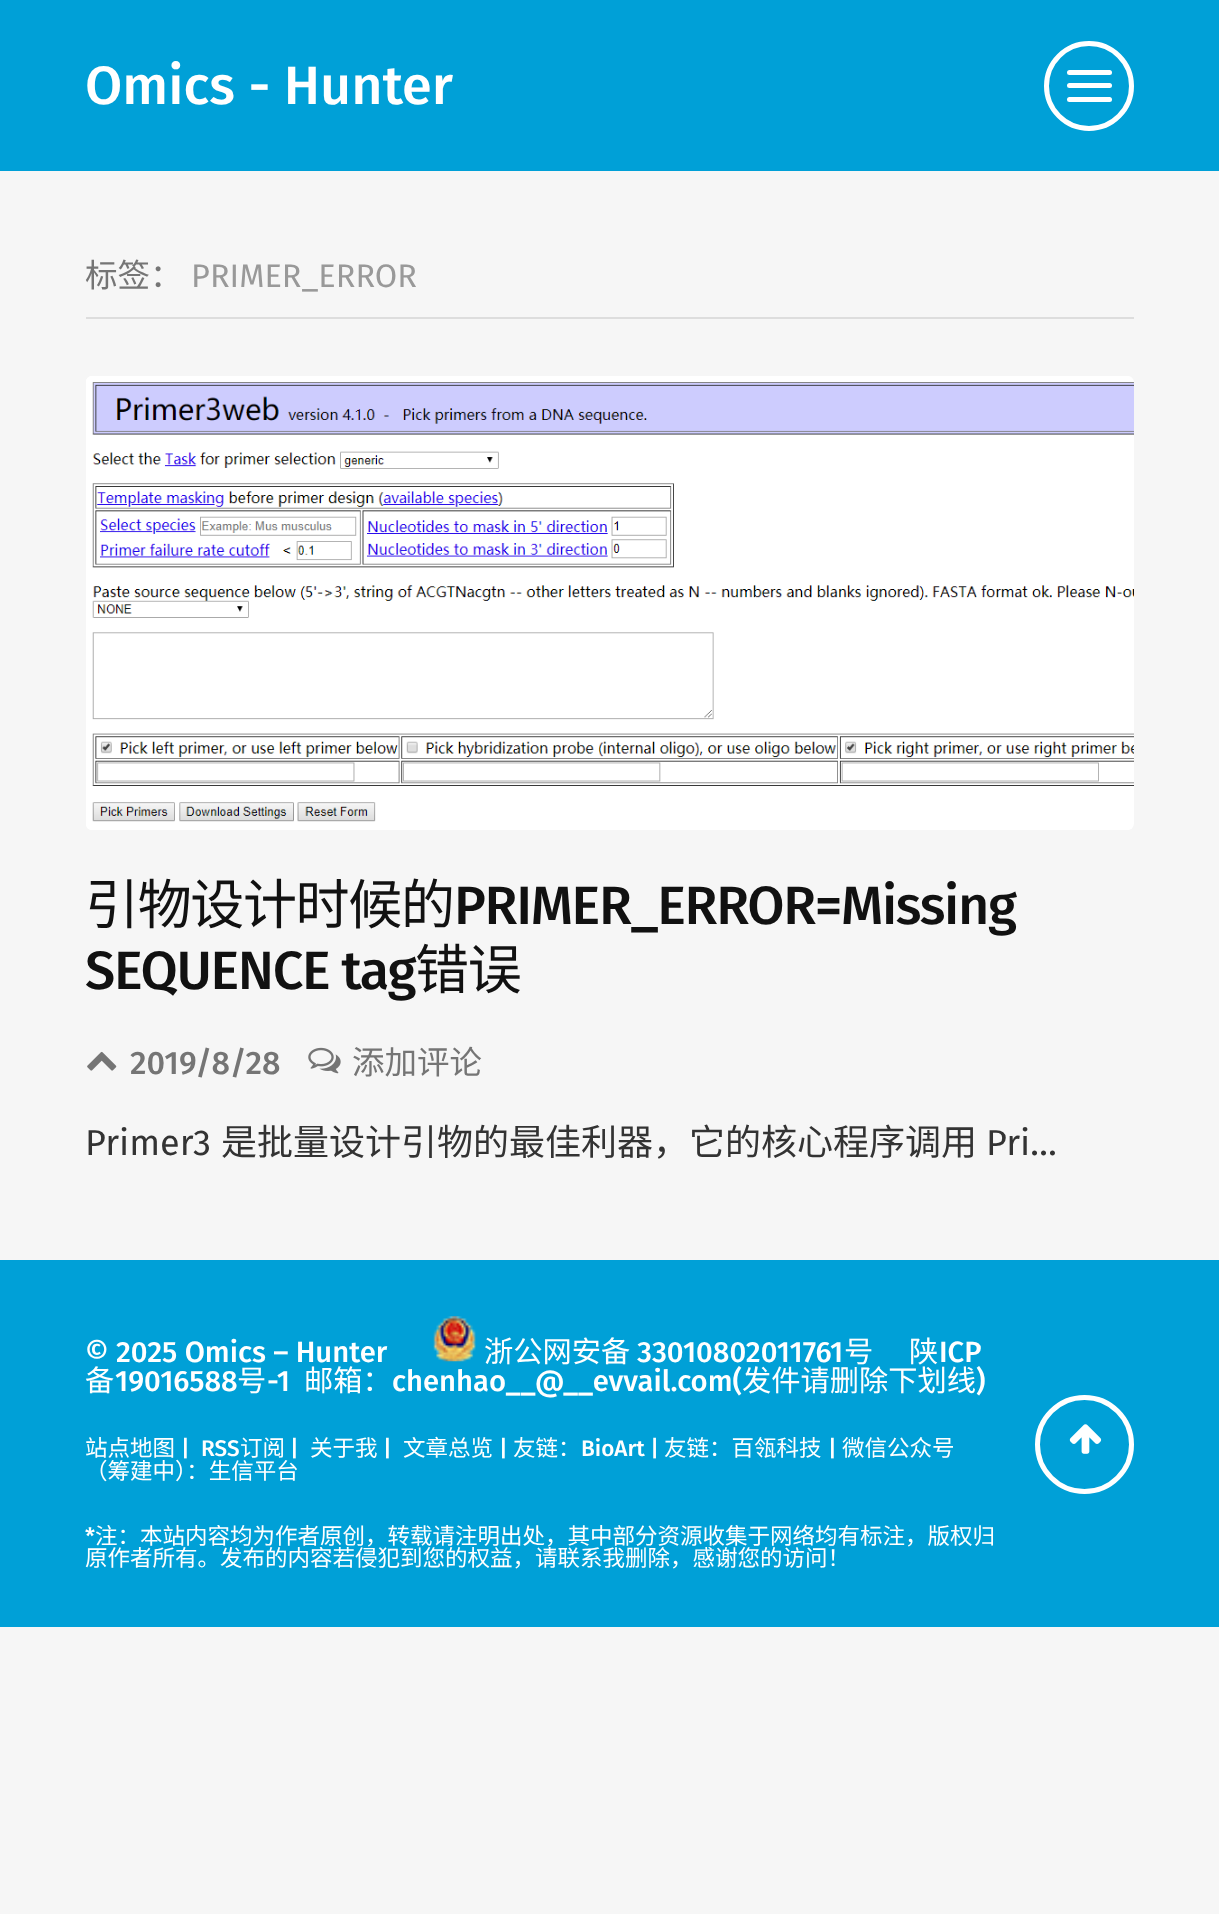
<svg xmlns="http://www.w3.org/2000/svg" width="1219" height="1914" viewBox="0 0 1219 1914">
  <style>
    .t1 { font: 500 54px Fira Sans; fill: #fff; }
    .t2 { font: 32.5px Noto Sans CJK SC; fill: #757575; }
    .t3 { font: 32.5px Fira Sans; fill: #999; }
    .t4 { font: 54px Noto Sans CJK SC; letter-spacing: -1.35px; fill: #111; }
    .t5 { font: 500 54px Fira Sans; letter-spacing: -1.35px; fill: #111; }
    .t6 { font: 500 32.5px Fira Sans; fill: #757575; }
    .t7 { font: 36px Fira Sans; fill: #333; }
    .t8 { font: 36px Noto Sans CJK SC; fill: #333; }
    .t9 { font: 500 29.25px Fira Sans; fill: #fff; }
    .t10 { font: 29.25px Noto Sans CJK SC; fill: #fff; }
    .t11 { font: 22.5px Noto Sans CJK SC; fill: #fff; }
    .t12 { font: 500 22.5px Fira Sans; fill: #fff; }
  </style>
  <rect width="100%" height="100%" fill="#f6f6f6"/>
  <rect x="0" y="0" width="1219" height="171" fill="#00a0d7"/>
  <text x="85" y="104" class="t1">Omics - Hunter</text>
  <circle cx="1089" cy="86" r="42.5" fill="none" stroke="#fff" stroke-width="5"/>
  <rect x="1067" y="70" width="45" height="5" rx="2.5" fill="#fff"/>
  <rect x="1067" y="83" width="45" height="5" rx="2.5" fill="#fff"/>
  <rect x="1067" y="97" width="45" height="5" rx="2.5" fill="#fff"/>
  <rect x="86" y="317" width="1048" height="2" fill="#ddd"/>
  <text x="85" y="287" class="t2">标签：</text>
  <text x="191" y="287" class="t3">PRIMER_ERROR</text>
  <image x="86" y="376" width="1048" height="454" href="images/1.png"/>
  <text x="85" y="924" class="t4">引物设计时候的</text>
  <text x="454" y="924" class="t5">PRIMER_ERROR=Missing</text>
  <text x="85" y="989" class="t5">SEQUENCE tag</text>
  <text x="415" y="989" class="t4">错误</text>
  <image x="87" y="1051" width="30" height="20" href="images/2.png"/>
  <text x="130" y="1074" class="t6">2019/8/28</text>
  <image x="308" y="1047" width="33" height="27" href="images/3.png"/>
  <text x="352" y="1074" class="t2">添加评论</text>
  <text x="85" y="1155" class="t7">Primer3</text>
  <text x="221" y="1155" class="t8">是批量设计引物的最佳利器，它的核心程序调用</text>
  <text x="986" y="1155" class="t7">Pri…</text>
  <rect x="0" y="1260" width="1219" height="367" fill="#00a0d7"/>
  <text x="85" y="1362" class="t9">© 2025 Omics – Hunter</text>
  <image x="433" y="1316" width="43" height="46" href="images/4.png"/>
  <text x="484" y="1362" class="t10">浙公网安备</text>
  <text x="637" y="1362" class="t9">33010802011761</text>
  <text x="844" y="1362" class="t10">号</text>
  <text x="909" y="1362" class="t10">陕</text>
  <text x="939" y="1362" class="t9">ICP</text>
  <text x="85" y="1391" class="t10">备</text>
  <text x="115" y="1391" class="t9">19016588</text>
  <text x="237" y="1391" class="t10">号</text>
  <text x="267" y="1391" class="t9">-1</text>
  <text x="304" y="1391" class="t10">邮箱：</text>
  <text x="392" y="1391" class="t9">chenhao__@__evvail.com(</text>
  <text x="742" y="1391" class="t10">发件请删除下划线</text>
  <text x="976" y="1391" class="t9">)</text>
  <text x="85" y="1456" class="t11">站点地图</text>
  <text x="181" y="1456" class="t12">|</text>
  <text x="201" y="1456" class="t12">RSS</text>
  <text x="240" y="1456" class="t11">订阅</text>
  <text x="290" y="1456" class="t12">|</text>
  <text x="310" y="1456" class="t11">关于我</text>
  <text x="383" y="1456" class="t12">|</text>
  <text x="403" y="1456" class="t11">文章总览</text>
  <text x="499" y="1456" class="t12">|</text>
  <text x="513" y="1456" class="t11">友链：</text>
  <text x="581" y="1456" class="t12">BioArt |</text>
  <text x="664" y="1456" class="t11">友链：百瓴科技</text>
  <text x="828" y="1456" class="t12">|</text>
  <text x="842" y="1456" class="t11">微信公众号</text>
  <text x="85" y="1479" class="t11">（筹建中）：生信平台</text>
  <circle cx="1084.5" cy="1444.5" r="47" fill="none" stroke="#fff" stroke-width="5"/>
  <image x="1069" y="1424" width="33" height="30" href="images/5.png"/>
  <text x="85" y="1544" class="t12">*</text>
  <text x="95" y="1544" class="t11">注：本站内容均为作者原创，转载请注明出处，其中部分资源收集于网络均有标注，版权归</text>
  <text x="85" y="1566" class="t11">原作者所有。发布的内容若侵犯到您的权益，请联系我删除，感谢您的访问！</text>
</svg>
